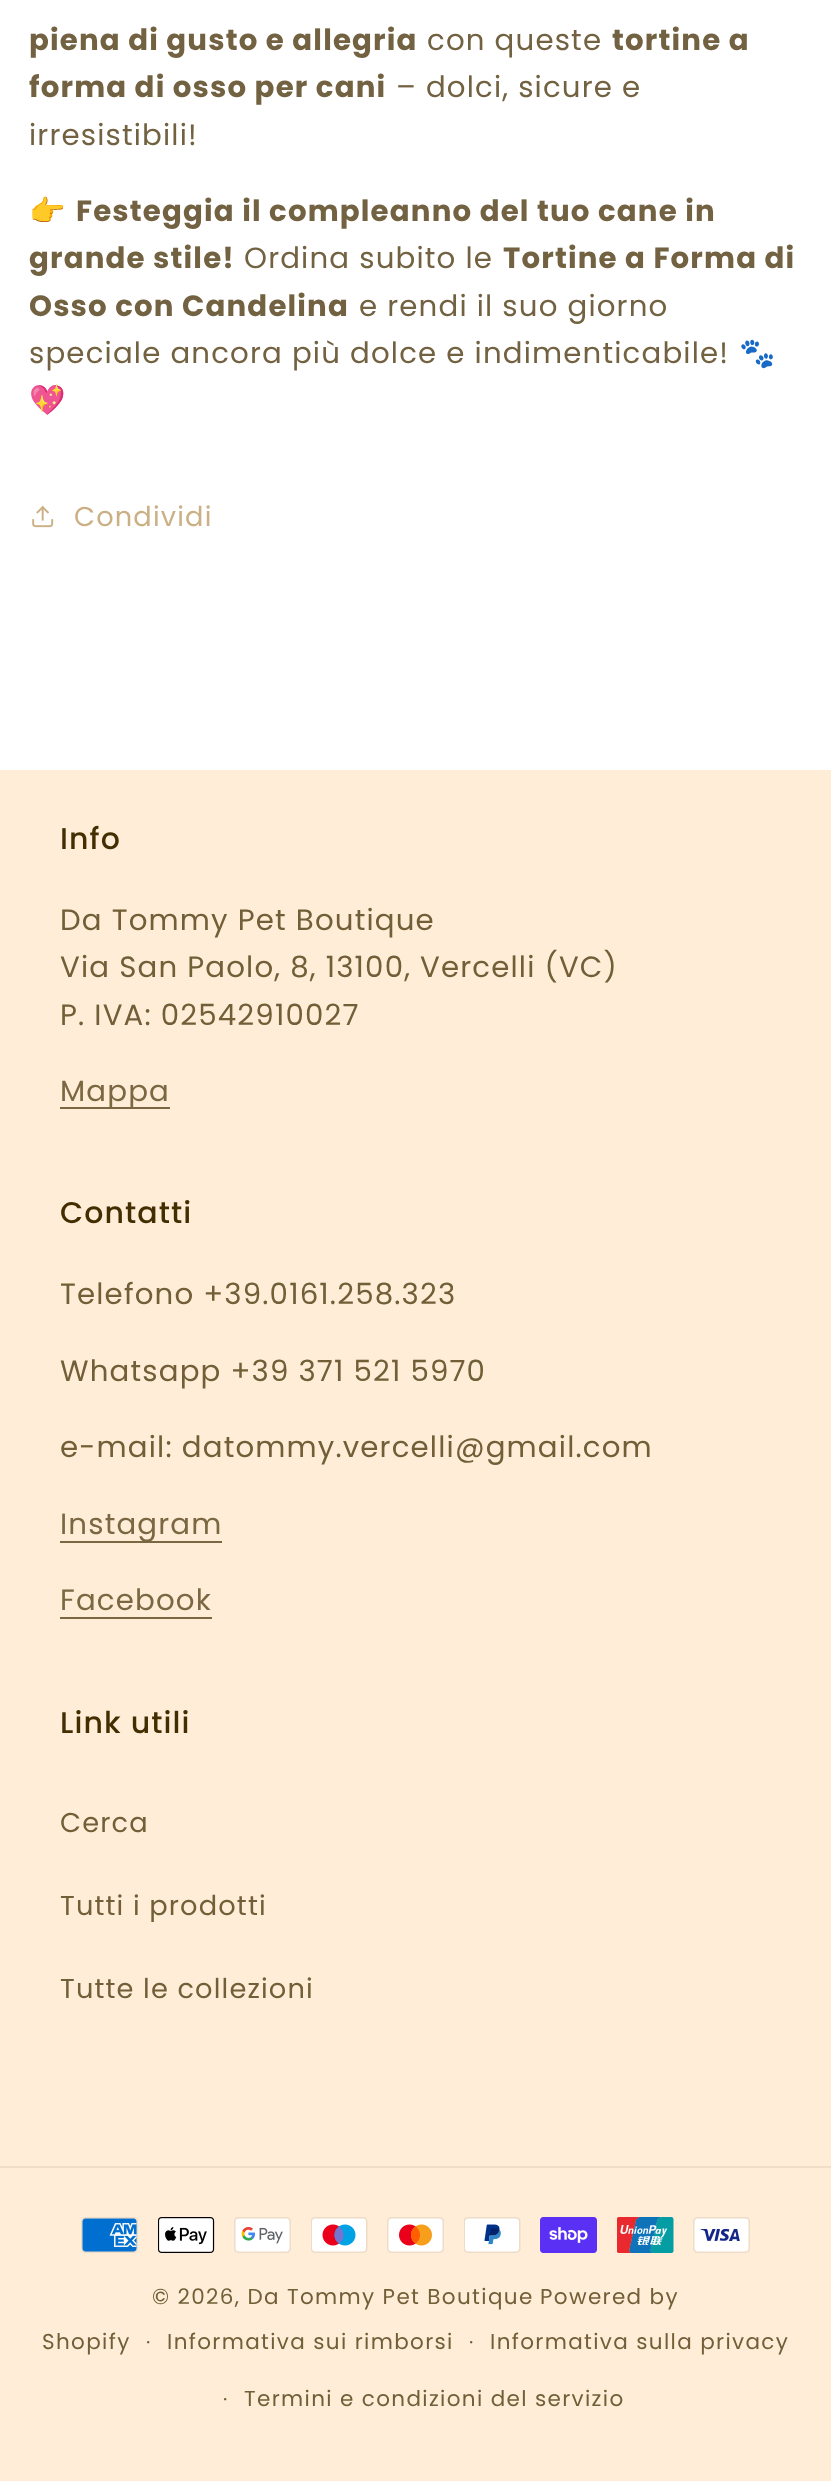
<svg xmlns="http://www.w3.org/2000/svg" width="831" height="2481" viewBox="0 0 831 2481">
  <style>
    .t1 { font: bold 29.25px Poppins; letter-spacing: 1.15px; fill: #726241; }
    .t2 { font: 29.25px Poppins; letter-spacing: 1.15px; fill: #726241; }
    .t3 { font: 29.25px Noto Color Emoji; letter-spacing: 1.15px; fill: #726241; }
    .t4 { font: 27.25px Poppins; letter-spacing: 1.15px; fill: #cab084; }
    .t5 { font: 500 30px Poppins; letter-spacing: 1.1px; fill: #432e02; }
    .t6 { font: 29.25px Poppins; letter-spacing: 1.15px; fill: #725e37; }
    .t7 { font: 29.25px Poppins; letter-spacing: 1.15px; fill: #7b6741; }
    .t8 { font: 27.25px Poppins; letter-spacing: 1.15px; fill: #725e37; }
    .t9 { font: 21.5px Poppins; letter-spacing: 1.35px; fill: #725e37; }
    .t10 { font: 20px Poppins; letter-spacing: 1.35px; fill: #725e37; }
  </style>
  <rect width="100%" height="100%" fill="#fff"/>
  <text x="29" y="50" class="t1">piena di gusto e allegria</text>
  <text x="427" y="50" class="t2">con queste</text>
  <text x="612" y="50" class="t1">tortine a</text>
  <text x="29" y="97" class="t1">forma di osso per cani</text>
  <text x="396" y="97" class="t2">– dolci, sicure e</text>
  <text x="29" y="145" class="t2">irresistibili!</text>
  <text x="29" y="221" class="t3">👉</text>
  <text x="76" y="221" class="t1">Festeggia il compleanno del tuo cane in</text>
  <text x="29" y="268" class="t1">grande stile!</text>
  <text x="244" y="268" class="t2">Ordina subito le</text>
  <text x="503" y="268" class="t1">Tortine a Forma di</text>
  <text x="29" y="316" class="t1">Osso con Candelina</text>
  <text x="359" y="316" class="t2">e rendi il suo giorno</text>
  <text x="29" y="363" class="t2">speciale ancora più dolce e indimenticabile!</text>
  <text x="739" y="363" class="t3">🐾</text>
  <text x="29" y="410" class="t3">💖</text>
  <image x="32" y="506" width="22" height="22" href="images/1.png"/>
  <text x="74" y="526" class="t4">Condividi</text>
  <rect x="0" y="770" width="831" height="1711" fill="#ffedd7"/>
  <text x="60" y="849" class="t5">Info</text>
  <text x="60" y="930" class="t6">Da Tommy Pet Boutique</text>
  <text x="60" y="977" class="t6">Via San Paolo, 8, 13100, Vercelli (VC)</text>
  <text x="60" y="1025" class="t6">P. IVA: 02542910027</text>
  <rect x="60" y="1107" width="110" height="2" fill="#7b6742"/>
  <text x="60" y="1101" class="t7">Mappa</text>
  <text x="60" y="1223" class="t5">Contatti</text>
  <text x="60" y="1304" class="t6">Telefono +39.0161.258.323</text>
  <text x="60" y="1381" class="t6">Whatsapp +39 371 521 5970</text>
  <text x="60" y="1457" class="t6">e-mail: datommy.vercelli@gmail.com</text>
  <rect x="60" y="1541" width="162" height="2" fill="#7b6742"/>
  <text x="60" y="1534" class="t7">Instagram</text>
  <text x="60" y="1610" class="t7">Facebook</text>
  <rect x="60" y="1617" width="152" height="2" fill="#7b6742"/>
  <text x="60" y="1733" class="t5">Link utili</text>
  <text x="60" y="1832" class="t8">Cerca</text>
  <text x="60" y="1915" class="t8">Tutti i prodotti</text>
  <text x="60" y="1998" class="t8">Tutte le collezioni</text>
  <rect x="0" y="2166" width="831" height="2" fill="#f0dec6"/>
  <image x="81" y="2217" width="57" height="36" href="images/2.png"/>
  <image x="158" y="2217" width="57" height="36" href="images/3.png"/>
  <image x="234" y="2217" width="57" height="36" href="images/4.png"/>
  <image x="311" y="2217" width="57" height="36" href="images/5.png"/>
  <image x="387" y="2217" width="57" height="36" href="images/6.png"/>
  <image x="464" y="2217" width="57" height="36" href="images/7.png"/>
  <image x="540" y="2217" width="57" height="36" href="images/8.png"/>
  <image x="617" y="2217" width="57" height="36" href="images/9.png"/>
  <image x="693" y="2217" width="57" height="36" href="images/10.png"/>
  <text x="152" y="2304" class="t9">© 2026, Da Tommy Pet Boutique</text>
  <text x="540" y="2304" class="t9">Powered by</text>
  <text x="42" y="2349" class="t9">Shopify</text>
  <text x="146" y="2349" class="t10">·</text>
  <text x="167" y="2349" class="t9">Informativa sui rimborsi</text>
  <text x="469" y="2349" class="t10">·</text>
  <text x="490" y="2349" class="t9">Informativa sulla privacy</text>
  <text x="223" y="2406" class="t10">·</text>
  <text x="244" y="2406" class="t9">Termini e condizioni del servizio</text>
</svg>
